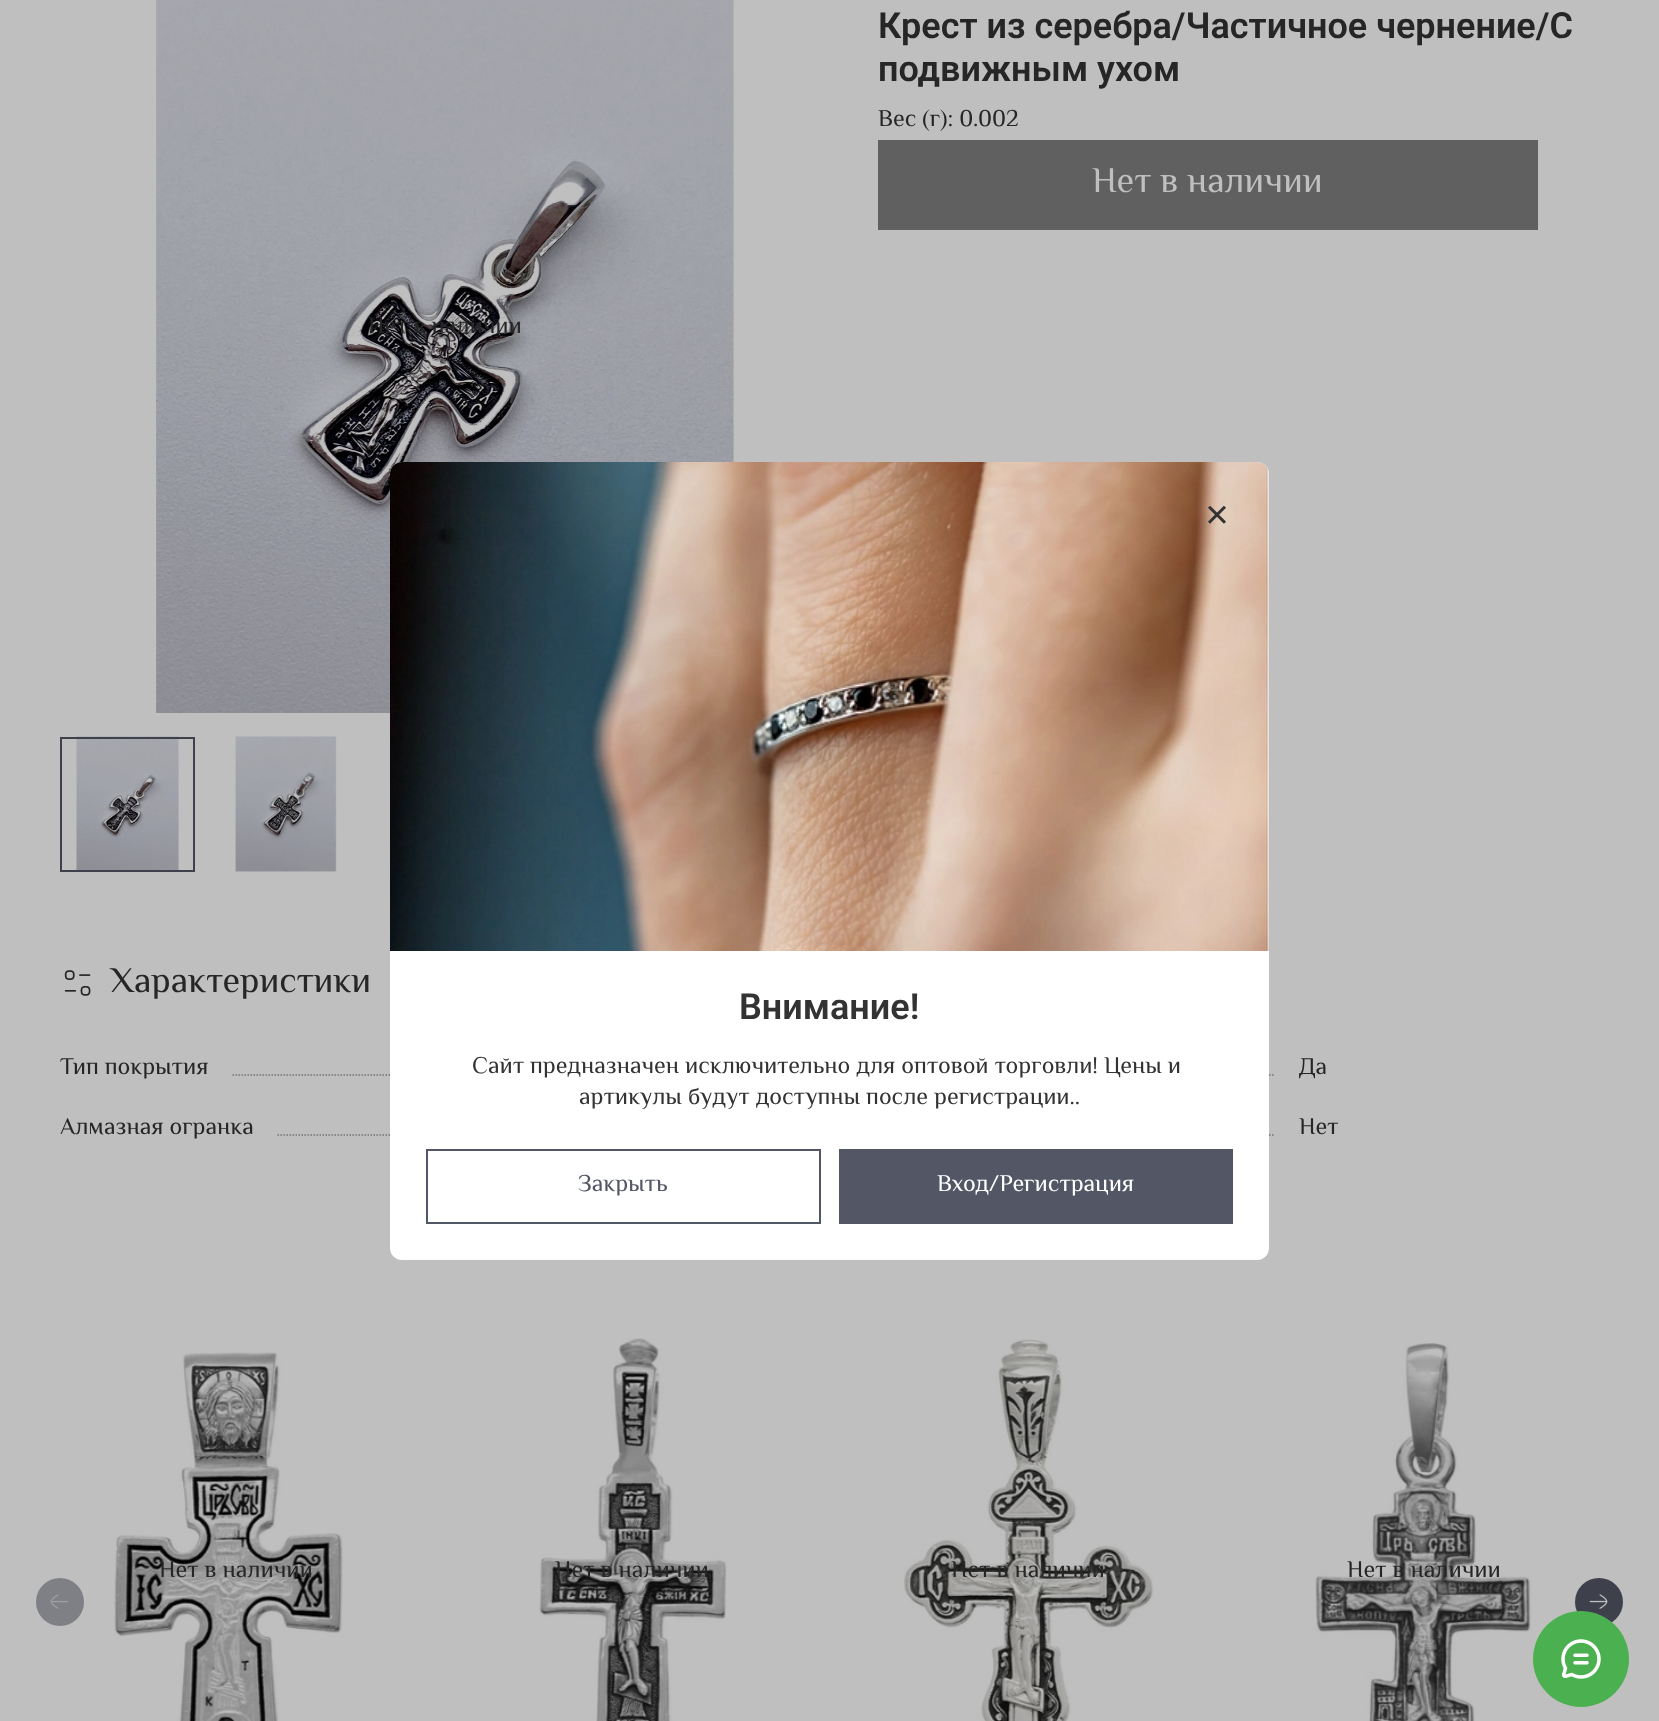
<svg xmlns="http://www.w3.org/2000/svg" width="1659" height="1721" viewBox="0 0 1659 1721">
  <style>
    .t1 { font: 600 36px Roboto; fill: #262626; }
    .t2 { font: 24px El Messiri; fill: #262626; }
    .t3 { font: 36px El Messiri; fill: #bfbfbf; }
    .t4 { font: 36px El Messiri; fill: #262626; }
    .t5 { font: 31px DejaVu Sans; fill: #333; }
    .t6 { font: 600 36px Roboto; fill: #333; }
    .t7 { font: 24px El Messiri; fill: #333; }
    .t8 { font: 24px El Messiri; fill: #525665; }
    .t9 { font: 24px El Messiri; fill: #fff; }
  </style>
  <rect width="100%" height="100%" fill="#bfbfbf"/>
  <text x="878" y="38" class="t1">Крест из серебра/Частичное чернение/С</text>
  <text x="878" y="81" class="t1">подвижным ухом</text>
  <text x="878" y="126" class="t2">Вес (г): 0.002</text>
  <rect x="878" y="140" width="660" height="90" fill="#606060"/>
  <text x="1092" y="192" class="t3">Нет в наличии</text>
  <image x="156" y="0" width="578" height="713" href="images/1.png"/>
  <text x="368" y="333" class="t2">Нет в наличии</text>
  <image x="76" y="736" width="103" height="134" href="images/2.png"/>
  <rect x="61" y="738" width="133" height="133" fill="none" stroke="#3e414c" stroke-width="2"/>
  <image x="235" y="736" width="102" height="136" href="images/3.png"/>
  <image x="64" y="970" width="27" height="26" href="images/4.png"/>
  <text x="110" y="992" class="t4">Характеристики</text>
  <text x="60" y="1074" class="t2">Тип покрытия</text>
  <path d="M232.5 1075H469.5" fill="none" stroke="#737373" stroke-width="1.5" stroke-dasharray="1.5 1.5"/>
  <path d="M1053 1075H1275" fill="none" stroke="#737373" stroke-width="1.5" stroke-dasharray="1.5 1.5"/>
  <text x="1299" y="1074" class="t2">Да</text>
  <text x="60" y="1134" class="t2">Алмазная огранка</text>
  <path d="M277.5 1135H469.5" fill="none" stroke="#737373" stroke-width="1.5" stroke-dasharray="1.5 1.5"/>
  <path d="M1065 1135H1275" fill="none" stroke="#737373" stroke-width="1.5" stroke-dasharray="1.5 1.5"/>
  <text x="1299" y="1134" class="t2">Нет</text>
  <image x="114" y="1352" width="229" height="369" href="images/5.png"/>
  <text x="159" y="1577" class="t2">Нет в наличии</text>
  <image x="539" y="1338" width="188" height="383" href="images/6.png"/>
  <text x="555" y="1577" class="t2">Нет в наличии</text>
  <image x="904" y="1339" width="250" height="382" href="images/7.png"/>
  <text x="951" y="1577" class="t2">Нет в наличии</text>
  <image x="1315" y="1343" width="216" height="378" href="images/8.png"/>
  <text x="1347" y="1577" class="t2">Нет в наличии</text>
  <circle cx="60" cy="1602" r="24" fill="#7f8086"/>
  <image x="50" y="1594" width="19" height="15" href="images/9.png"/>
  <circle cx="1599" cy="1602" r="24" fill="#3e414c"/>
  <image x="1589" y="1594" width="19" height="15" href="images/10.png"/>
  <rect x="390" y="462" width="879" height="798" rx="12" fill="#fff"/>
  <image x="390" y="462" width="879" height="489" href="images/11.png"/>
  <text x="1204" y="526" class="t5">✕</text>
  <text x="739" y="1019" class="t6">Внимание!</text>
  <text x="472" y="1073" class="t7">Сайт предназначен исключительно для оптовой торговли!  Цены и</text>
  <text x="579" y="1104" class="t7">артикулы будут доступны после регистрации..</text>
  <rect x="427" y="1150" width="393" height="73" fill="none" stroke="#525665" stroke-width="2"/>
  <text x="578" y="1191" class="t8">Закрыть</text>
  <rect x="839" y="1149" width="394" height="75" fill="#525665"/>
  <text x="937" y="1191" class="t9">Вход/Регистрация</text>
  <circle cx="1581" cy="1659" r="48" fill="#4bb04f"/>
  <image x="1561" y="1639" width="40" height="40" href="images/12.png"/>
</svg>
